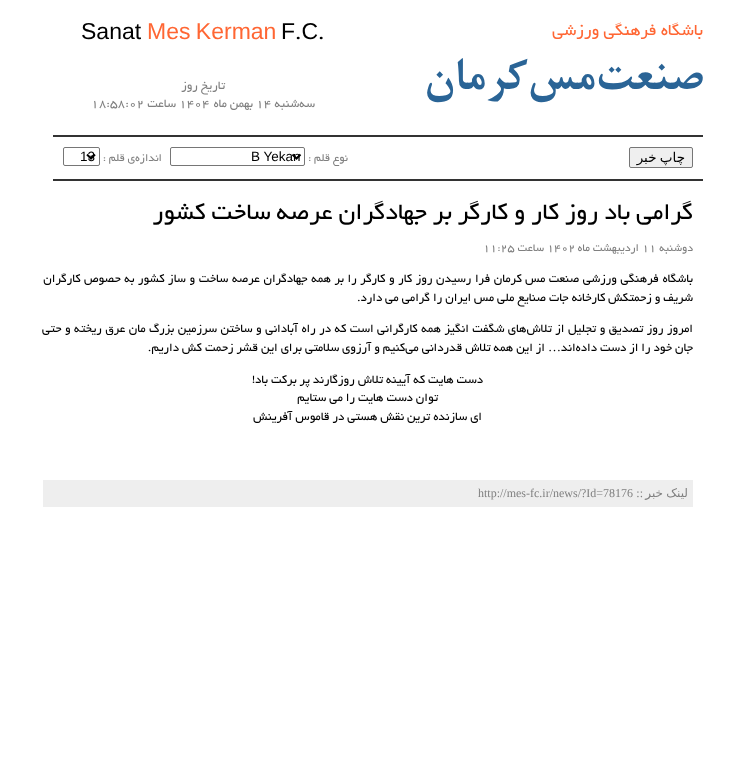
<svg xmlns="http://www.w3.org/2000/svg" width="756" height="776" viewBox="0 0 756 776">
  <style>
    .t1 { font: 18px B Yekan; direction: rtl; fill: #f63; }
    .t2 { font: bold 50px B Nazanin; direction: rtl; fill: #2a6496; }
    .t3 { font: 23px Liberation Sans; fill: #000; }
    .t4 { font: 23px Liberation Sans; fill: #f63; }
    .t5 { font: 23px B Yekan; fill: #000; }
    .t6 { font: 13px B Yekan; direction: rtl; fill: #808080; }
    .t7 { font: 13px B Yekan; fill: #808080; }
    .t8 { font: 13.5px DejaVu Sans; direction: rtl; fill: #000; }
    .t9 { font: 12px B Yekan; direction: rtl; fill: #808080; }
    .t10 { font: 13.5px Liberation Sans; fill: #000; }
    .t11 { font: 26px B Yekan; direction: rtl; fill: #000; }
    .t12 { font: 12px B Yekan; fill: #808080; }
    .t13 { font: 13px B Yekan; direction: rtl; fill: #000; }
    .t14 { font: 13px Liberation Serif; direction: rtl; fill: #000; }
    .t15 { font: 12px DejaVu Sans; direction: rtl; fill: #808080; }
    .t16 { font: 12px Liberation Serif; direction: rtl; fill: #808080; }
    .t17 { font: 12px Liberation Serif; fill: #808080; }
  </style>
  <rect width="100%" height="100%" fill="#fff"/>
  <rect x="53" y="135" width="650" height="2" fill="#333"/>
  <text x="703" y="35" class="t1">باشگاه فرهنگی ورزشی</text>
  <text x="703" y="89" class="t2">صنعت‌مس‌کرمان</text>
  <text x="281" y="39" class="t3">F C</text>
  <text x="147" y="39" word-spacing="-1" class="t4">Mes Kerman</text>
  <text x="81" y="39" class="t3">Sanat</text>
  <text x="318" y="39" class="t5">.</text>
  <text x="295" y="39" class="t5">.</text>
  <text x="225" y="89" class="t6">تاریخ روز</text>
  <text x="315" y="107" class="t6">سه‌شنبه</text>
  <text x="256" y="107" class="t7">14</text>
  <text x="253" y="107" class="t6">بهمن ماه</text>
  <text x="179" y="107" class="t7">1404</text>
  <text x="176" y="107" class="t6">ساعت</text>
  <text x="91" y="107" class="t7">18:58:02</text>
  <rect x="53" y="179" width="650" height="2" fill="#333"/>
  <rect x="629.5" y="147.5" width="63" height="20" rx="1.5" fill="#efefef" stroke="#767676"/>
  <text x="685" y="162" word-spacing="-1" class="t8">چاپ خبر</text>
  <text x="348" y="161" class="t9">نوع قلم :‌</text>
  <rect x="170.5" y="147.5" width="134" height="18" rx="1.5" fill="none" stroke="#767676"/>
  <path d="M292.5 154.5L296.5 158.5L300.5 154.5" fill="none" stroke="#000" stroke-width="2"/>
  <text x="251" y="161" class="t10">B Yekan</text>
  <text x="162" y="161" class="t9">اندازه‌ی قلم :‌</text>
  <rect x="63.5" y="147.5" width="36" height="18" rx="1.5" fill="none" stroke="#767676"/>
  <path d="M87 154.5L91 158.5L95 154.5" fill="none" stroke="#000" stroke-width="2"/>
  <text x="80" y="161" class="t10">13</text>
  <text x="693" y="219" class="t11">گرامی باد روز کار و کارگر بر جهادگران عرصه ساخت کشور</text>
  <text x="693" y="251" class="t9">دوشنبه</text>
  <text x="642" y="251" class="t12">11</text>
  <text x="639" y="251" class="t9">اردیبهشت ماه</text>
  <text x="547" y="251" class="t12">1402</text>
  <text x="544" y="251" class="t9">ساعت</text>
  <text x="483" y="251" class="t12">11:25</text>
  <text x="693" y="282" word-spacing="0.6" class="t13">باشگاه فرهنگی ورزشی صنعت مس کرمان فرا رسیدن روز کار و کارگر را بر همه جهادگران عرصه ساخت و ساز کشور به حصوص کارگران</text>
  <text x="693" y="301" class="t13">شریف و زحمتکش کارخانه جات صنایع ملی مس ایران را گرامی می دارد.</text>
  <text x="693" y="332" word-spacing="0.5" class="t13">امروز روز تصدیق و تجلیل از تلاش‌های شگفت انگیز همه کارگرانی است که در راه آبادانی و ساختن سرزمین بزرگ مان عرق ریخته و حتی</text>
  <text x="693" y="351" class="t13">جان خود را از دست داده‌اند</text>
  <text x="561" y="351" class="t14">…</text>
  <text x="545" y="351" class="t13">از این همه تلاش قدردانی می‌کنیم و آرزوی سلامتی برای این قشر زحمت کش داریم.</text>
  <text x="483" y="383" class="t13">دست هایت که آیینه تلاش روزگارند پر برکت باد!</text>
  <text x="438" y="401" class="t13">توان دست هایت را می ستایم</text>
  <text x="482" y="420" class="t13">ای سازنده ترین نقش هستی در قاموس آفرینش</text>
  <rect x="43" y="480" width="650" height="27" fill="#eee"/>
  <text x="688" y="497" class="t15">لینک</text>
  <text x="663" y="497" class="t15">خبر</text>
  <text x="646" y="497" class="t16">‌ ::</text>
  <text x="478" y="497" class="t17">http://mes-fc.ir/news/?Id=78176</text>
</svg>
